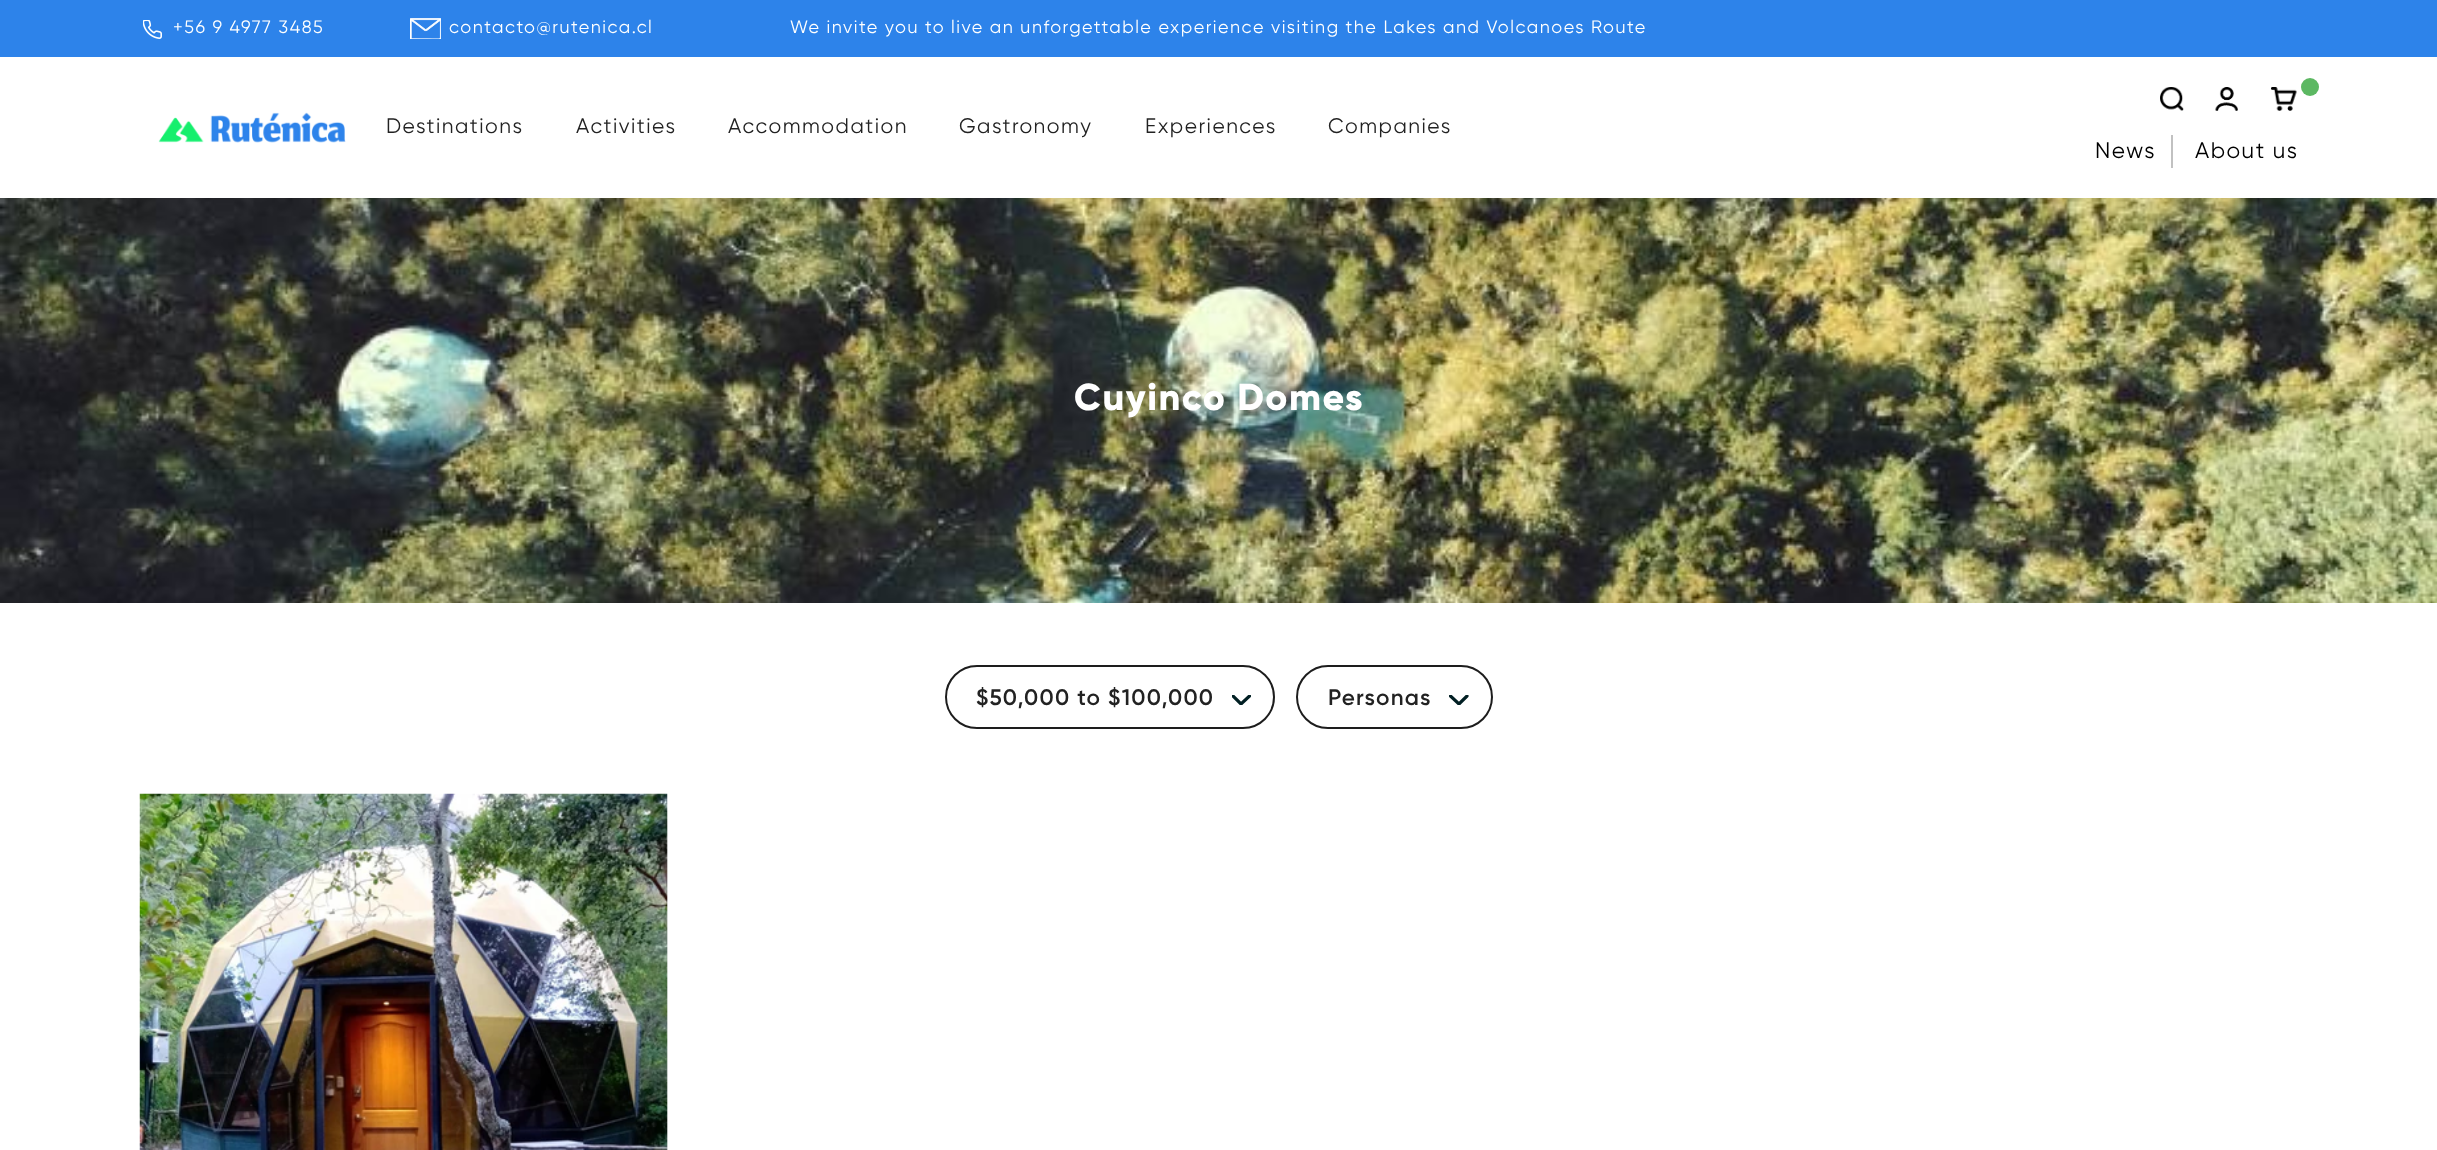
<svg xmlns="http://www.w3.org/2000/svg" width="2437" height="1150" viewBox="0 0 2437 1150">
  <style>
    .t1 { font: 18px Gilroy; letter-spacing: 1.5px; fill: #fff; }
    .t2 { font: 21px Gilroy; letter-spacing: 1.5px; fill: #222; }
    .t3 { font: 22.5px Gilroy; letter-spacing: 1.5px; fill: #000; }
    .t4 { font: 800 37.5px Gilroy; letter-spacing: 1.5px; fill: #fff; }
    .t5 { font: 600 22.5px Gilroy; letter-spacing: 1.25px; fill: #222; }
  </style>
  <defs>
    <clipPath id="clip1"><rect x="1232" y="695" width="19" height="10"/></clipPath>
    <clipPath id="clip2"><rect x="1449" y="695" width="20" height="10"/></clipPath>
    <clipPath id="clip3"><rect x="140" y="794" width="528" height="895"/></clipPath>
  </defs>
  <rect width="100%" height="100%" fill="#fff"/>
  <rect x="0" y="0" width="2437" height="57" fill="#2d83ea"/>
  <image x="143" y="20" width="19" height="19" href="images/1.png"/>
  <text x="173" y="33" class="t1">+56 9 4977 3485</text>
  <image x="410" y="18" width="31" height="21" href="images/2.png"/>
  <text x="449" y="33" class="t1">contacto@rutenica.cl</text>
  <text x="790" y="33" class="t1">We invite you to live an unforgettable experience visiting the Lakes and Volcanoes Route</text>
  <image x="158" y="112" width="188" height="31" href="images/3.png"/>
  <text x="386" y="133" class="t2">Destinations</text>
  <text x="576" y="133" class="t2">Activities</text>
  <text x="728" y="133" class="t2">Accommodation</text>
  <text x="959" y="133" class="t2">Gastronomy</text>
  <text x="1145" y="133" class="t2">Experiences</text>
  <text x="1328" y="133" class="t2">Companies</text>
  <image x="2160" y="87" width="24" height="24" href="images/4.png"/>
  <image x="2215" y="87" width="23" height="24" href="images/5.png"/>
  <image x="2271" y="87" width="26" height="24" href="images/6.png"/>
  <circle cx="2310" cy="87" r="9" fill="#5cb862"/>
  <rect x="2171" y="135" width="2" height="33" fill="#c1c1c1"/>
  <text x="2095" y="158" class="t3">News</text>
  <text x="2195" y="158" class="t3">About us</text>
  <image x="0" y="198" width="2437" height="405" href="images/7.png"/>
  <text x="1074" y="410" class="t4">Cuyinco Domes</text>
  <rect x="946" y="666" width="328" height="62" rx="31" fill="none" stroke="#1d1d1d" stroke-width="2"/>
  <text x="976" y="705" class="t5">$50,000 to $100,000</text>
  <g clip-path="url(#clip1)">
    <path d="M1233 696L1241 704L1249.5 696" fill="none" stroke="#011f23" stroke-width="3.2" stroke-linecap="round" stroke-linejoin="round"/>
  </g>
  <rect x="1297" y="666" width="195" height="62" rx="31" fill="none" stroke="#1d1d1d" stroke-width="2"/>
  <text x="1328" y="705" class="t5">Personas</text>
  <g clip-path="url(#clip2)">
    <path d="M1450.5 696L1459 704L1467 696" fill="none" stroke="#011f23" stroke-width="3.2" stroke-linecap="round" stroke-linejoin="round"/>
  </g>
  <g clip-path="url(#clip3)">
    <rect x="156" y="819" width="495" height="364" fill="#000" filter="blur(11px)"/>
  </g>
  <image x="139" y="793" width="529" height="357" href="images/8.png"/>
</svg>
